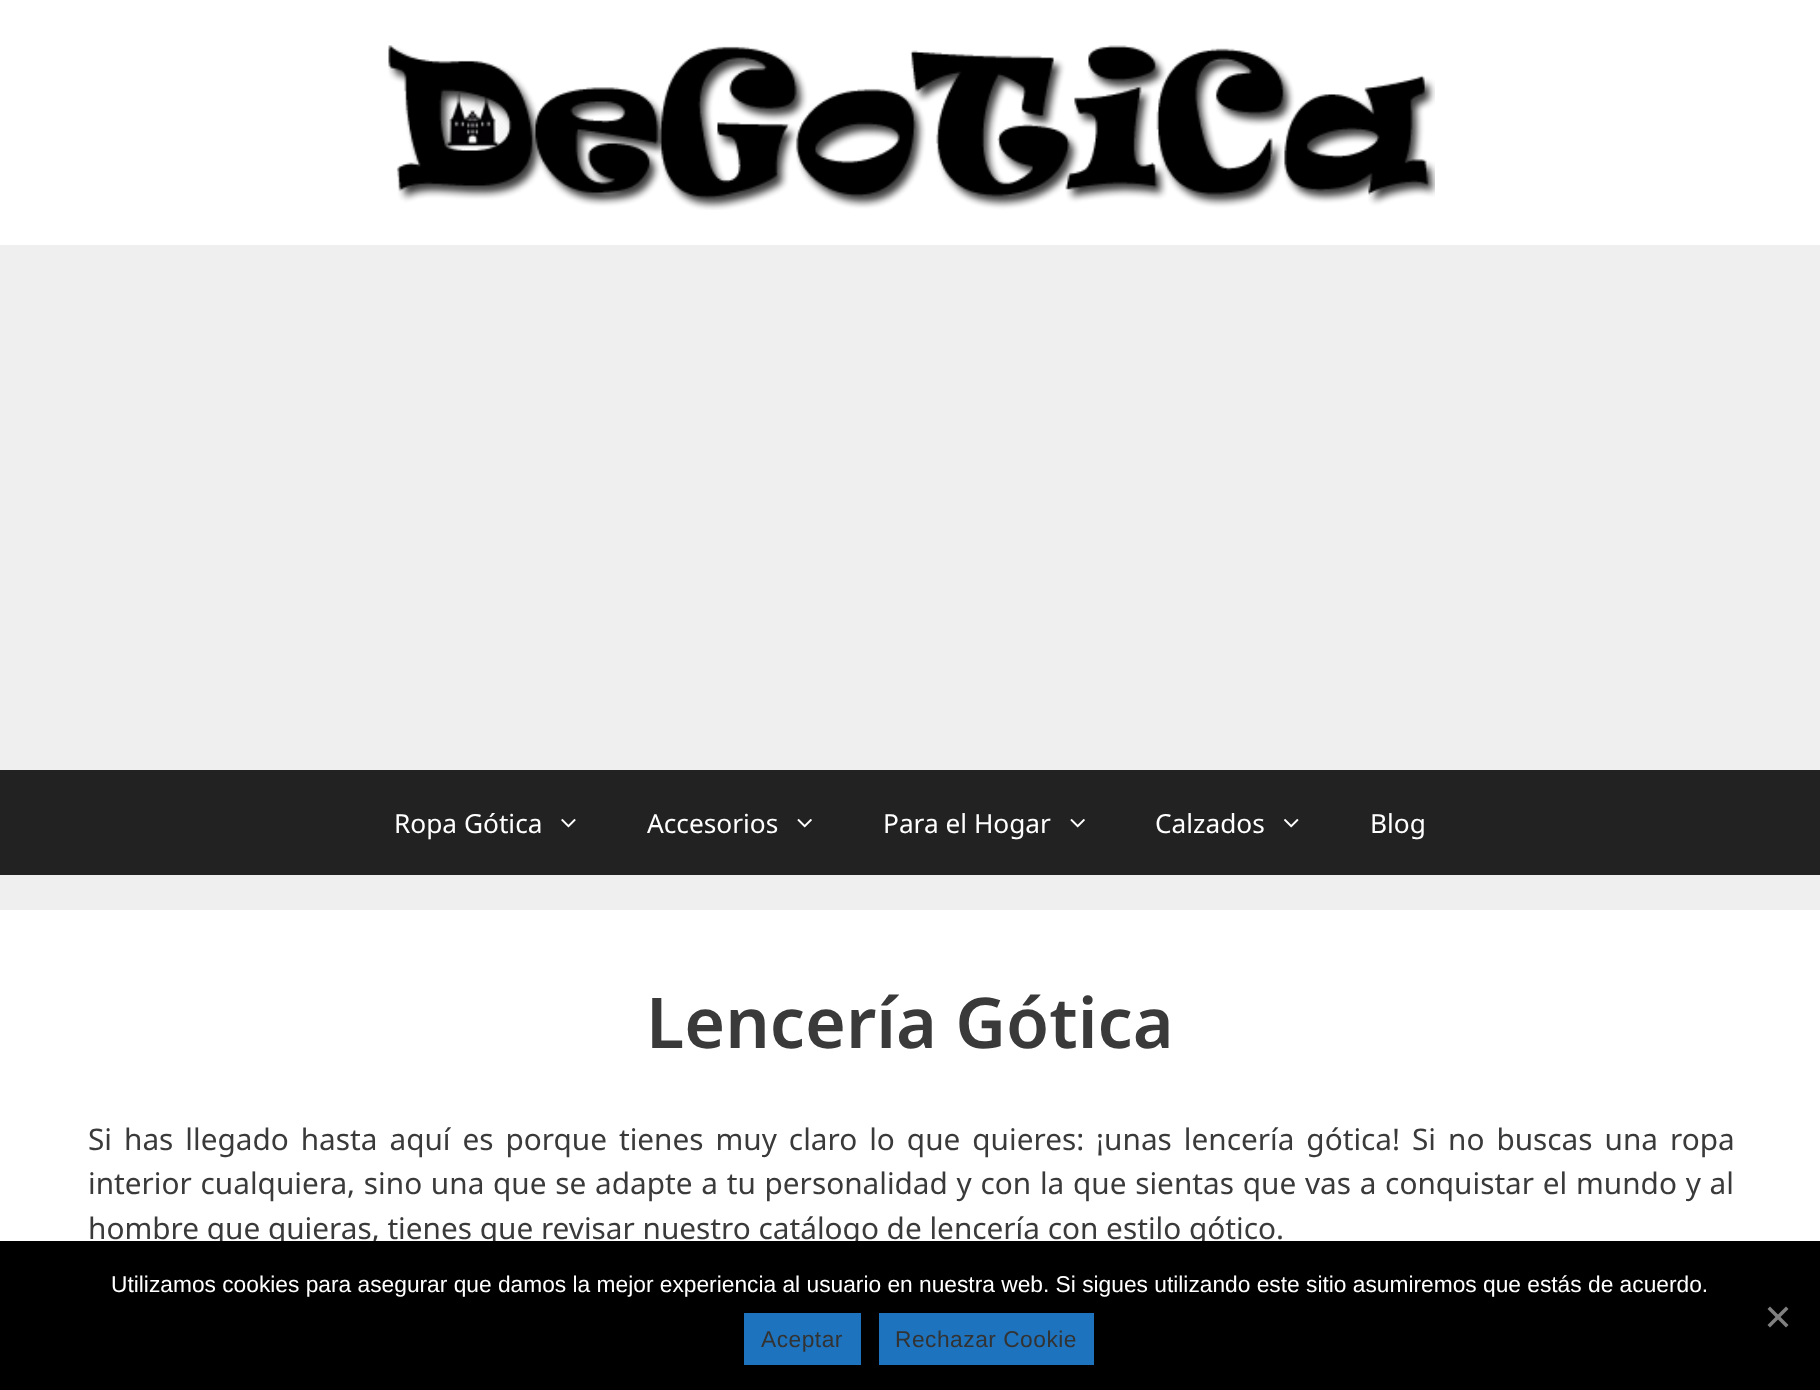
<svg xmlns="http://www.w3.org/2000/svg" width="1820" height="1390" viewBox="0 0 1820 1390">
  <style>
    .t1 { font: 26.25px Noto Sans; fill: #fff; }
    .t2 { font: 600 70px Noto Sans; fill: #3a3a3a; }
    .t3 { font: 29.75px Noto Sans; fill: #3a3a3a; }
    .t4 { font: 22.75px Liberation Sans; fill: #fff; }
    .t5 { font: 22.75px Liberation Sans; letter-spacing: 0.5px; fill: #333; }
  </style>
  <rect width="100%" height="100%" fill="#efefef"/>
  <rect x="0" y="0" width="1820" height="245" fill="#fff"/>
  <image x="388" y="45" width="1047" height="165" href="images/1.png"/>
  <rect x="0" y="770" width="1820" height="105" fill="#222"/>
  <text x="394" y="833" class="t1">Ropa Gótica</text>
  <image x="561" y="818" width="15" height="10" href="images/2.png"/>
  <text x="647" y="833" class="t1">Accesorios</text>
  <image x="797" y="818" width="15" height="10" href="images/3.png"/>
  <text x="883" y="833" class="t1">Para el Hogar</text>
  <image x="1070" y="818" width="15" height="10" href="images/3.png"/>
  <text x="1155" y="833" class="t1">Calzados</text>
  <image x="1284" y="818" width="15" height="10" href="images/4.png"/>
  <text x="1370" y="833" class="t1">Blog</text>
  <rect x="0" y="910" width="1820" height="331" fill="#fff"/>
  <text x="646" y="1048" class="t2">Lencería Gótica</text>
  <text x="88" y="1150" word-spacing="4.25" class="t3">Si has llegado hasta aquí es porque tienes muy claro lo que quieres: ¡unas lencería gótica! Si no buscas una ropa</text>
  <text x="88" y="1194" word-spacing="1" class="t3">interior cualquiera, sino una que se adapte a tu personalidad y con la que sientas que vas a conquistar el mundo y al</text>
  <text x="88" y="1239" class="t3">hombre que quieras, tienes que revisar nuestro catálogo de lencería con estilo gótico.</text>
  <rect x="0" y="1241" width="1820" height="149" fill="#000"/>
  <text x="111" y="1292" class="t4">Utilizamos cookies para asegurar que damos la mejor experiencia al usuario en nuestra web. Si sigues utilizando este sitio asumiremos que estás de acuerdo.</text>
  <path d="M1786 1306.5L1788.5 1309L1770 1327.5L1767.5 1325Z" fill="#808080"/>
  <path d="M1767.5 1309L1770 1306.5L1788.5 1325L1786 1327.5Z" fill="#808080"/>
  <rect x="744" y="1313" width="117" height="52" fill="#1e73be"/>
  <text x="761" y="1347" class="t5">Aceptar</text>
  <rect x="879" y="1313" width="215" height="52" fill="#1e73be"/>
  <text x="895" y="1347" class="t5">Rechazar Cookie</text>
</svg>
